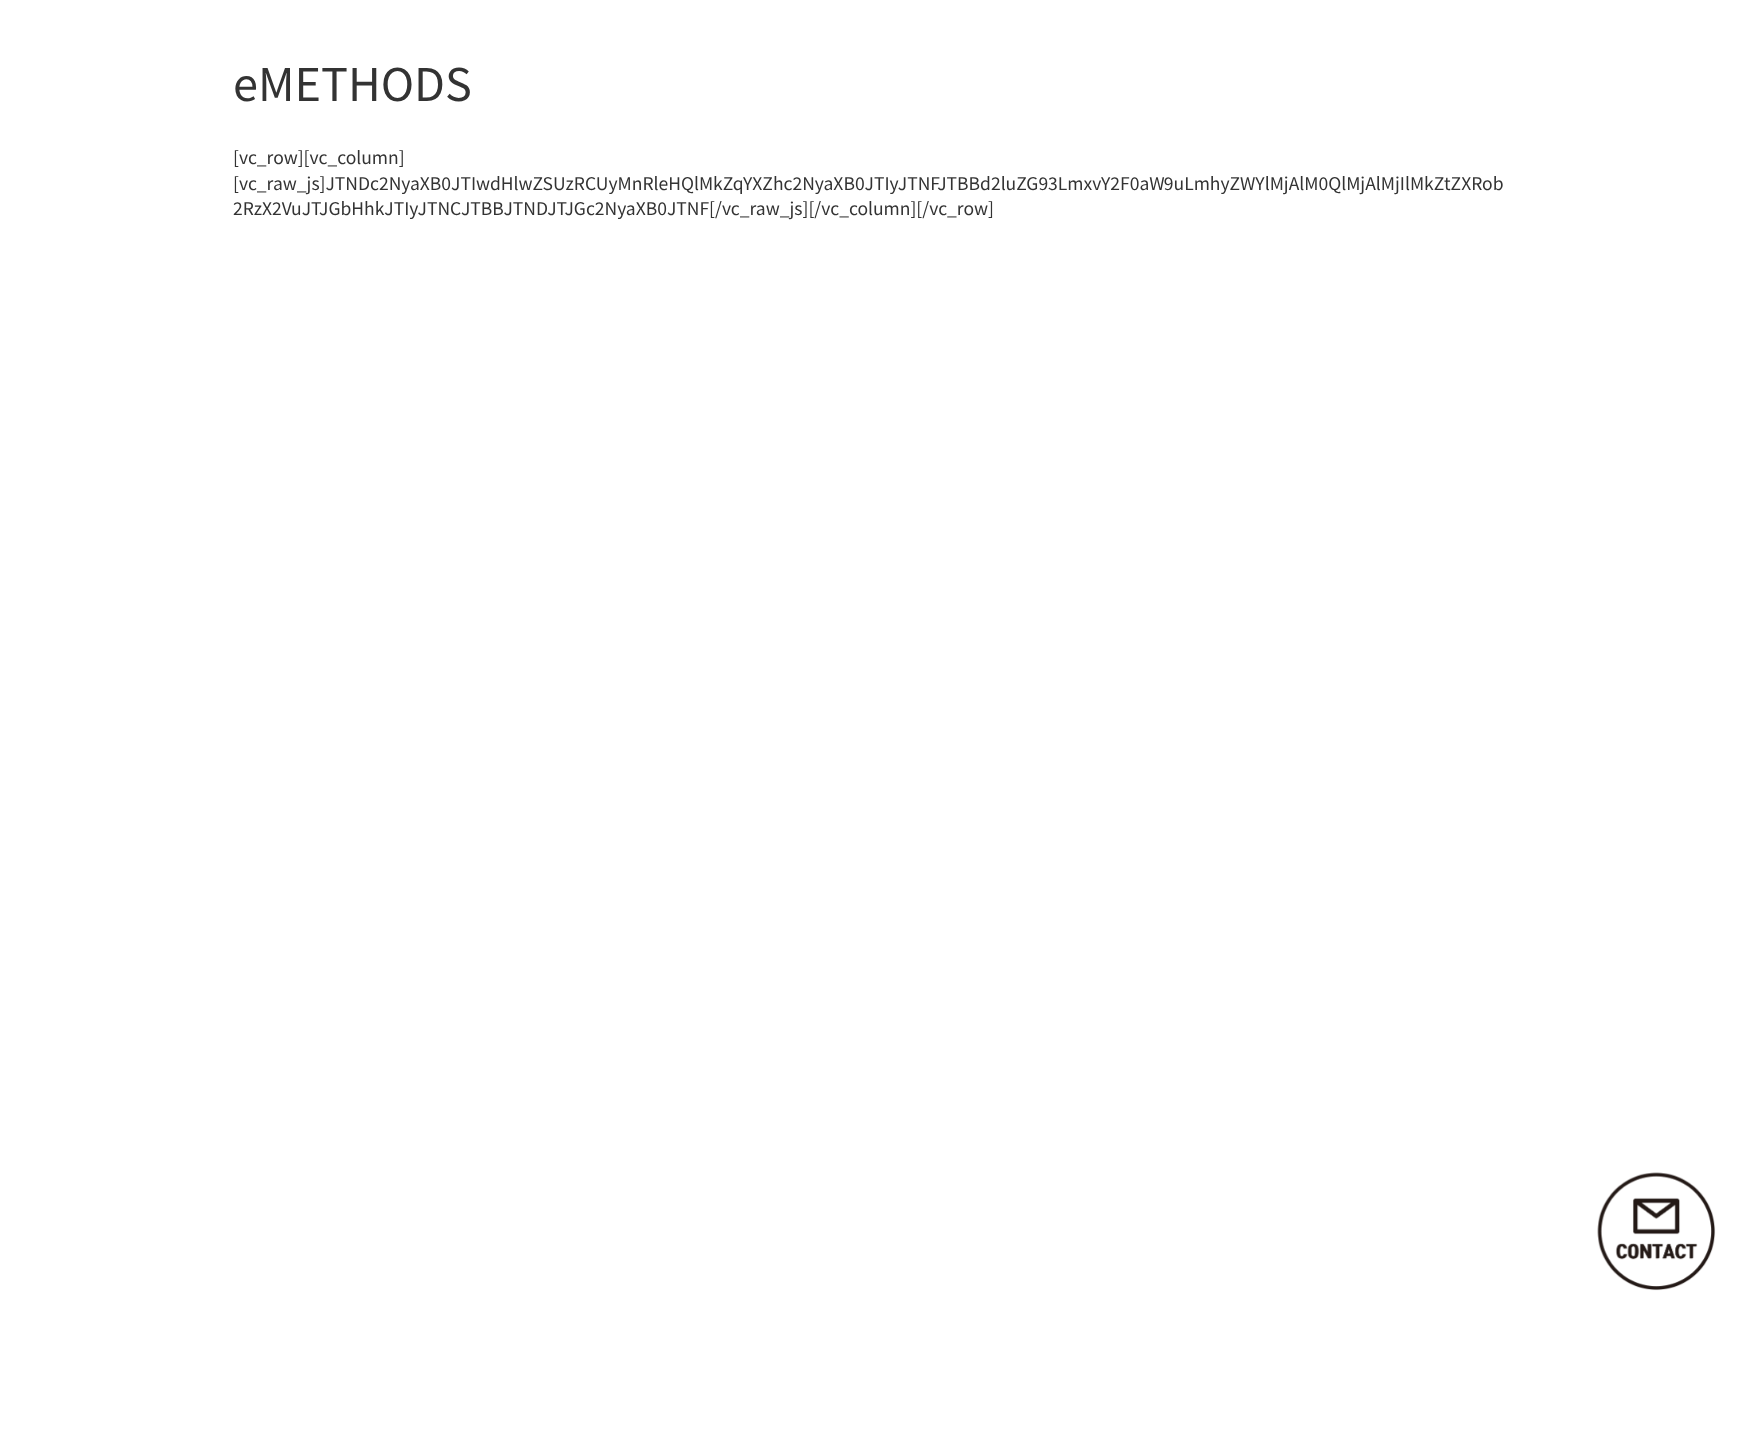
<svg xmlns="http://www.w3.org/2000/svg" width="1739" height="1431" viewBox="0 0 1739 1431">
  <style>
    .t1 { font: 45px Noto Sans KR; fill: #333; }
    .t2 { font: 17.5px Noto Sans KR; fill: #333; }
  </style>
  <rect width="100%" height="100%" fill="#fff"/>
  <text x="233" y="101" class="t1">eMETHODS</text>
  <text x="233" y="164" class="t2">[vc_row][vc_column]</text>
  <text x="233" y="190" class="t2">[vc_raw_js]JTNDc2NyaXB0JTIwdHlwZSUzRCUyMnRleHQlMkZqYXZhc2NyaXB0JTIyJTNFJTBBd2luZG93LmxvY2F0aW9uLmhyZWYlMjAlM0QlMjAlMjIlMkZtZXRob</text>
  <text x="233" y="215" class="t2">2RzX2VuJTJGbHhkJTIyJTNCJTBBJTNDJTJGc2NyaXB0JTNF[/vc_raw_js][/vc_column][/vc_row]</text>
  <image x="1597" y="1172" width="119" height="119" href="images/1.png"/>
</svg>
